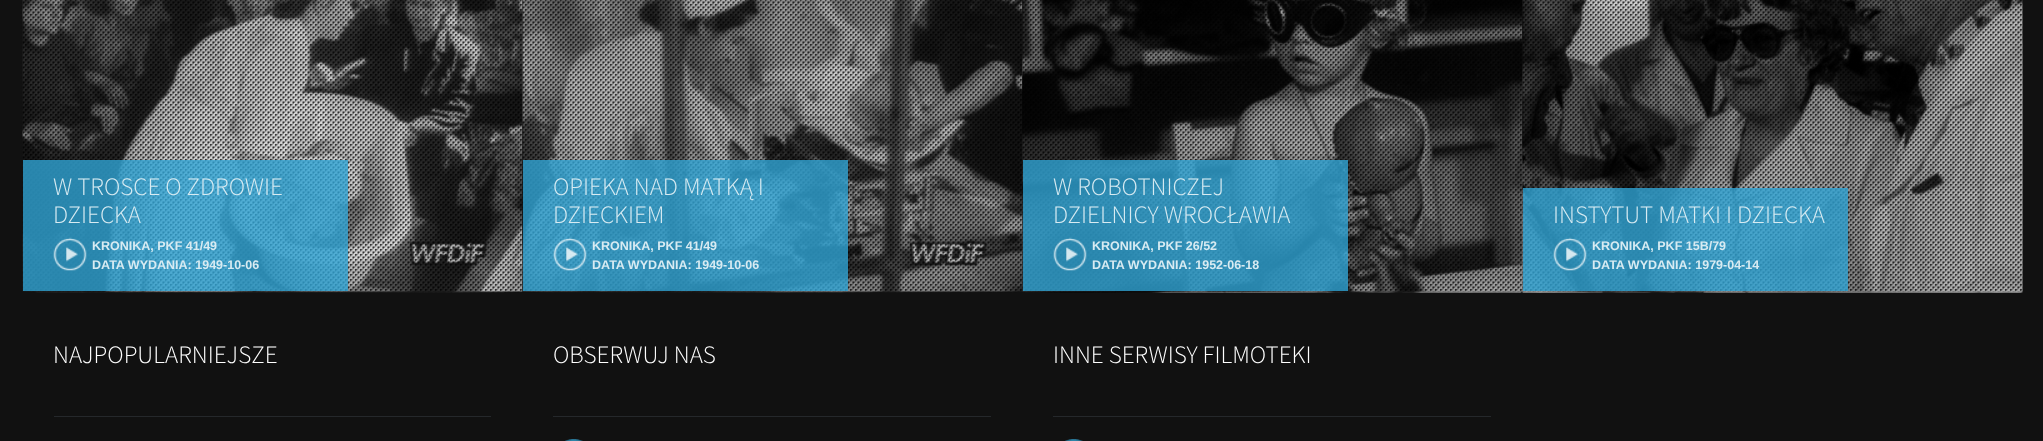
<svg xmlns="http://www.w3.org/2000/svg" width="2043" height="441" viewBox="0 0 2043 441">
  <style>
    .t1 { font: 300 25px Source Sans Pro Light; fill: #d8ebf2; }
    .t2 { font: bold 12.5px Liberation Sans; fill: #d8ebf2; }
    .t3 { font: 300 25px Source Sans Pro Light; fill: #fff; }
  </style>
  <rect width="100%" height="100%" fill="#111"/>
  <image x="33" y="291" width="486" height="2" href="images/3.png"/>
  <image x="22" y="0" width="501" height="292" href="images/1.png"/>
  <image x="522" y="0" width="495" height="293" href="images/5.png"/>
  <image x="522" y="0" width="501" height="292" href="images/6.png"/>
  <image x="22" y="0" width="501" height="292" href="images/2.png"/>
  <rect x="23" y="160" width="325" height="131" fill="#30a4d4cc"/>
  <text x="53" y="195" class="t1">W TROSCE O ZDROWIE</text>
  <text x="53" y="223" class="t1">DZIECKA</text>
  <image x="53" y="237" width="34" height="34" href="images/4.png"/>
  <text x="92" y="250" class="t2">KRONIKA, PKF 41/49</text>
  <text x="92" y="269" class="t2">DATA WYDANIA: 1949-10-06</text>
  <image x="1022" y="0" width="501" height="293" href="images/9.png"/>
  <image x="1022" y="0" width="501" height="292" href="images/10.png"/>
  <image x="522" y="0" width="501" height="292" href="images/7.png"/>
  <rect x="523" y="160" width="325" height="131" fill="#30a4d4cc"/>
  <text x="553" y="195" class="t1">OPIEKA NAD MATKĄ I</text>
  <text x="553" y="223" class="t1">DZIECKIEM</text>
  <image x="553" y="237" width="34" height="34" href="images/8.png"/>
  <text x="592" y="250" class="t2">KRONIKA, PKF 41/49</text>
  <text x="592" y="269" class="t2">DATA WYDANIA: 1949-10-06</text>
  <image x="1522" y="0" width="501" height="293" href="images/13.png"/>
  <image x="1522" y="0" width="501" height="292" href="images/14.png"/>
  <image x="1022" y="0" width="501" height="292" href="images/11.png"/>
  <rect x="1023" y="160" width="325" height="131" fill="#30a4d4cc"/>
  <text x="1053" y="195" class="t1">W ROBOTNICZEJ</text>
  <text x="1053" y="223" class="t1">DZIELNICY WROCŁAWIA</text>
  <image x="1053" y="237" width="34" height="34" href="images/12.png"/>
  <text x="1092" y="250" class="t2">KRONIKA, PKF 26/52</text>
  <text x="1092" y="269" class="t2">DATA WYDANIA: 1952-06-18</text>
  <image x="1522" y="0" width="501" height="292" href="images/15.png"/>
  <rect x="1523" y="188" width="325" height="103" fill="#30a4d4cc"/>
  <text x="1553" y="223" class="t1">INSTYTUT MATKI I DZIECKA</text>
  <image x="1553" y="237" width="34" height="34" href="images/16.png"/>
  <text x="1592" y="250" class="t2">KRONIKA, PKF 15B/79</text>
  <text x="1592" y="269" class="t2">DATA WYDANIA: 1979-04-14</text>
  <text x="53" y="363" class="t3">NAJPOPULARNIEJSZE</text>
  <rect x="54" y="416" width="437" height="1" fill="#25282b"/>
  <text x="553" y="363" class="t3">OBSERWUJ NAS</text>
  <rect x="553" y="416" width="438" height="1" fill="#25282b"/>
  <image x="565" y="439" width="18" height="2" href="images/17.png"/>
  <text x="1053" y="363" class="t3">INNE SERWISY FILMOTEKI</text>
  <rect x="1053" y="416" width="438" height="1" fill="#25282b"/>
  <image x="1065" y="439" width="18" height="2" href="images/17.png"/>
</svg>
